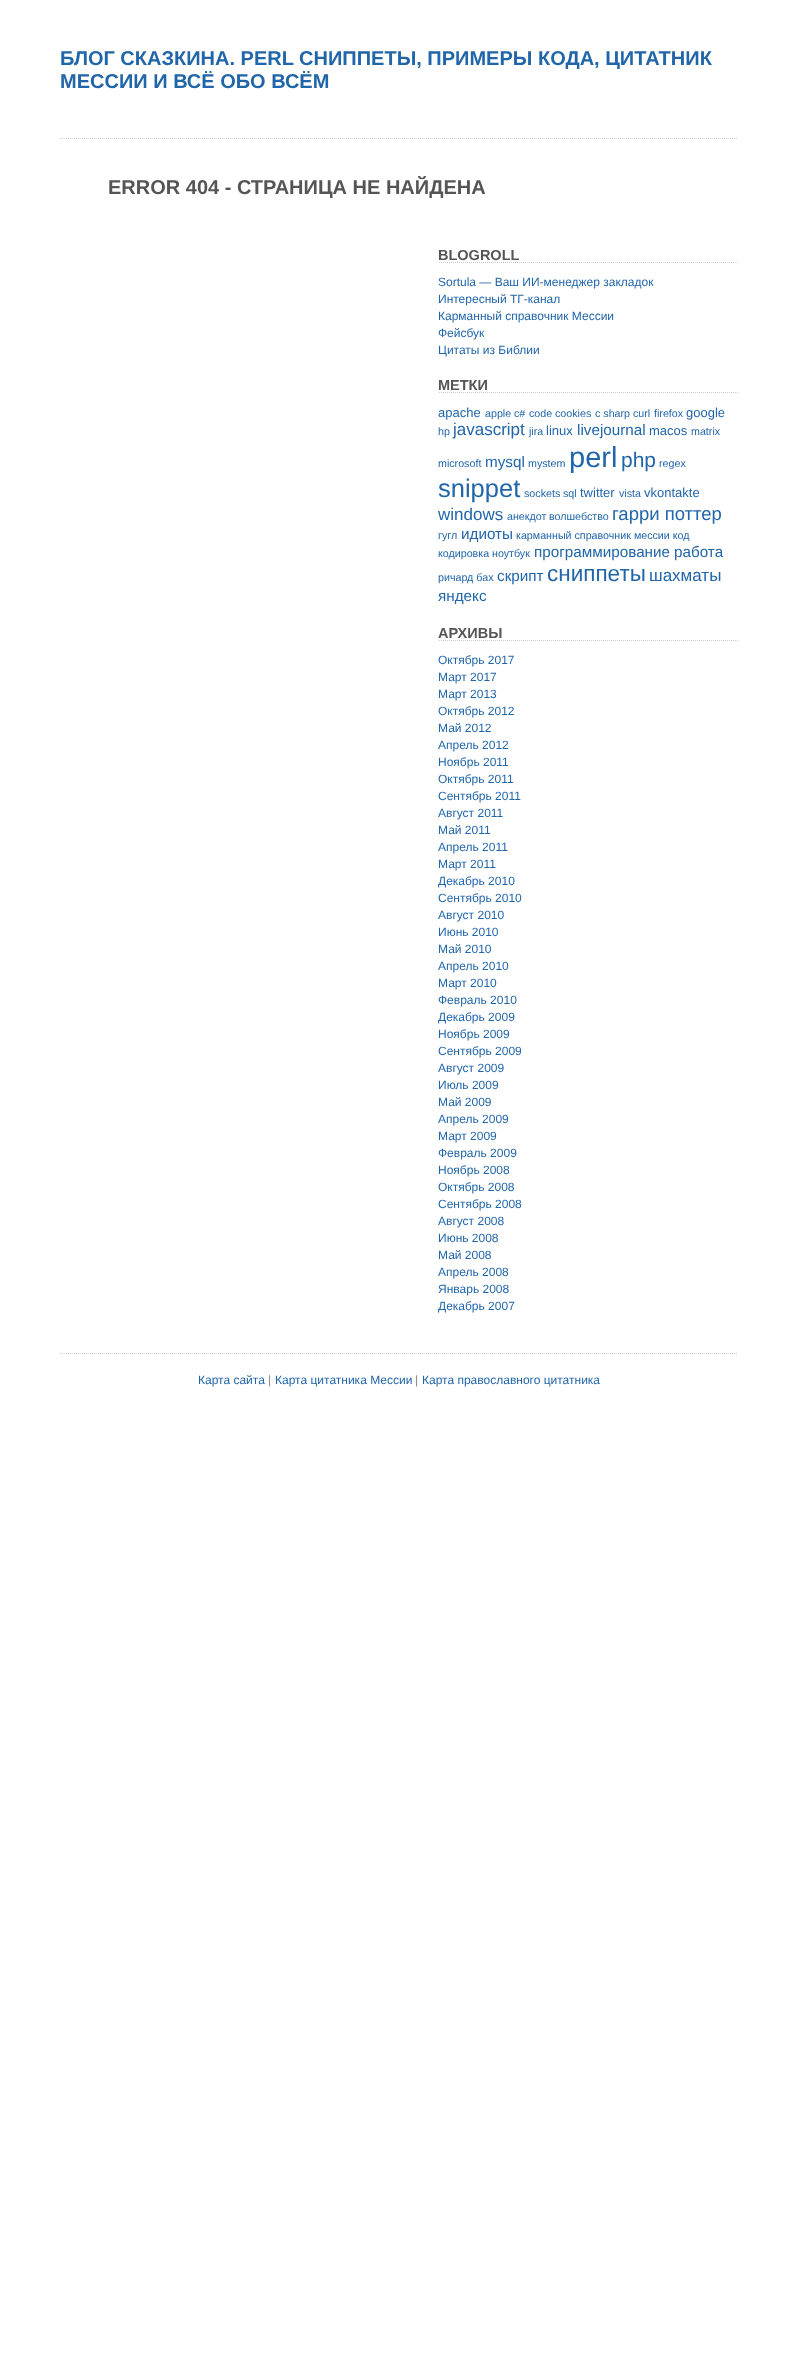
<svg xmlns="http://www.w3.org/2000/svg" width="798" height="2362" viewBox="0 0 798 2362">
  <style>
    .t1 { font: bold 20px Liberation Sans; fill: #26a; }
    .t2 { font: bold 20px Liberation Sans; fill: #555; }
    .t3 { font: bold 14.5px Liberation Sans; fill: #555; }
    .t4 { font: 12px Liberation Sans; fill: #26a; }
    .t5 { font: 13px Liberation Sans; fill: #26a; }
    .t6 { font: 10.7px Liberation Sans; fill: #26a; }
    .t7 { font: 17px Liberation Sans; fill: #26a; }
    .t8 { font: 15.25px Liberation Sans; fill: #26a; }
    .t9 { font: 29px Liberation Sans; fill: #26a; }
    .t10 { font: 21px Liberation Sans; fill: #26a; }
    .t11 { font: 25.5px Liberation Sans; fill: #26a; }
    .t12 { font: 18.5px Liberation Sans; fill: #26a; }
    .t13 { font: 22.5px Liberation Sans; fill: #26a; }
    .t14 { font: 12px Liberation Sans; fill: #888; }
  </style>
  <rect width="100%" height="100%" fill="#fff"/>
  <image x="60" y="138" width="678" height="1" href="images/1.png"/>
  <text x="60" y="65" class="t1">БЛОГ СКАЗКИНА. PERL СНИППЕТЫ, ПРИМЕРЫ КОДА, ЦИТАТНИК</text>
  <text x="60" y="88" class="t1">МЕССИИ И ВСЁ ОБО ВСЁМ</text>
  <text x="108" y="194" class="t2">ERROR 404 - СТРАНИЦА НЕ НАЙДЕНА</text>
  <image x="439" y="262" width="299" height="1" href="images/2.png"/>
  <text x="438" y="260" class="t3">BLOGROLL</text>
  <text x="438" y="286" class="t4">Sortula — Ваш ИИ-менеджер закладок</text>
  <text x="438" y="303" class="t4">Интересный ТГ-канал</text>
  <text x="438" y="320" class="t4">Карманный справочник Мессии</text>
  <text x="438" y="337" class="t4">Фейсбук</text>
  <text x="438" y="354" class="t4">Цитаты из Библии</text>
  <image x="439" y="392" width="299" height="1" href="images/2.png"/>
  <text x="438" y="390" class="t3">МЕТКИ</text>
  <text x="438" y="417" class="t5">apache</text>
  <text x="485" y="417" class="t6">apple</text>
  <text x="514" y="417" class="t6">c#</text>
  <text x="529" y="417" class="t6">code</text>
  <text x="555" y="417" class="t6">cookies</text>
  <text x="595" y="417" class="t6">c sharp</text>
  <text x="633" y="417" class="t6">curl</text>
  <text x="654" y="417" class="t6">firefox</text>
  <text x="686" y="417" class="t5">google</text>
  <text x="438" y="435" class="t6">hp</text>
  <text x="453" y="435" class="t7">javascript</text>
  <text x="529" y="435" class="t6">jira</text>
  <text x="546" y="435" class="t5">linux</text>
  <text x="577" y="435" class="t8">livejournal</text>
  <text x="649" y="435" class="t5">macos</text>
  <text x="691" y="435" class="t6">matrix</text>
  <text x="438" y="467" class="t6">microsoft</text>
  <text x="485" y="467" class="t8">mysql</text>
  <text x="528" y="467" class="t6">mystem</text>
  <text x="569" y="467" class="t9">perl</text>
  <text x="621" y="467" class="t10">php</text>
  <text x="659" y="467" class="t6">regex</text>
  <text x="438" y="497" class="t11">snippet</text>
  <text x="524" y="497" class="t6">sockets</text>
  <text x="563" y="497" class="t6">sql</text>
  <text x="580" y="497" class="t5">twitter</text>
  <text x="619" y="497" class="t6">vista</text>
  <text x="644" y="497" class="t5">vkontakte</text>
  <text x="438" y="520" class="t7">windows</text>
  <text x="507" y="520" class="t6">анекдот</text>
  <text x="549" y="520" class="t6">волшебство</text>
  <text x="612" y="520" class="t12">гарри поттер</text>
  <text x="438" y="539" class="t6">гугл</text>
  <text x="461" y="539" class="t8">идиоты</text>
  <text x="516" y="539" class="t6">карманный справочник мессии код</text>
  <text x="438" y="557" class="t6">кодировка</text>
  <text x="492" y="557" class="t6">ноутбук</text>
  <text x="534" y="557" class="t8">программирование</text>
  <text x="674" y="557" class="t8">работа</text>
  <text x="438" y="581" class="t6">ричард бах</text>
  <text x="497" y="581" class="t8">скрипт</text>
  <text x="547" y="581" class="t13">сниппеты</text>
  <text x="649" y="581" class="t7">шахматы</text>
  <text x="438" y="601" class="t8">яндекс</text>
  <image x="439" y="640" width="299" height="1" href="images/2.png"/>
  <text x="438" y="638" class="t3">АРХИВЫ</text>
  <text x="438" y="664" class="t4">Октябрь 2017</text>
  <text x="438" y="681" class="t4">Март 2017</text>
  <text x="438" y="698" class="t4">Март 2013</text>
  <text x="438" y="715" class="t4">Октябрь 2012</text>
  <text x="438" y="732" class="t4">Май 2012</text>
  <text x="438" y="749" class="t4">Апрель 2012</text>
  <text x="438" y="766" class="t4">Ноябрь 2011</text>
  <text x="438" y="783" class="t4">Октябрь 2011</text>
  <text x="438" y="800" class="t4">Сентябрь 2011</text>
  <text x="438" y="817" class="t4">Август 2011</text>
  <text x="438" y="834" class="t4">Май 2011</text>
  <text x="438" y="851" class="t4">Апрель 2011</text>
  <text x="438" y="868" class="t4">Март 2011</text>
  <text x="438" y="885" class="t4">Декабрь 2010</text>
  <text x="438" y="902" class="t4">Сентябрь 2010</text>
  <text x="438" y="919" class="t4">Август 2010</text>
  <text x="438" y="936" class="t4">Июнь 2010</text>
  <text x="438" y="953" class="t4">Май 2010</text>
  <text x="438" y="970" class="t4">Апрель 2010</text>
  <text x="438" y="987" class="t4">Март 2010</text>
  <text x="438" y="1004" class="t4">Февраль 2010</text>
  <text x="438" y="1021" class="t4">Декабрь 2009</text>
  <text x="438" y="1038" class="t4">Ноябрь 2009</text>
  <text x="438" y="1055" class="t4">Сентябрь 2009</text>
  <text x="438" y="1072" class="t4">Август 2009</text>
  <text x="438" y="1089" class="t4">Июль 2009</text>
  <text x="438" y="1106" class="t4">Май 2009</text>
  <text x="438" y="1123" class="t4">Апрель 2009</text>
  <text x="438" y="1140" class="t4">Март 2009</text>
  <text x="438" y="1157" class="t4">Февраль 2009</text>
  <text x="438" y="1174" class="t4">Ноябрь 2008</text>
  <text x="438" y="1191" class="t4">Октябрь 2008</text>
  <text x="438" y="1208" class="t4">Сентябрь 2008</text>
  <text x="438" y="1225" class="t4">Август 2008</text>
  <text x="438" y="1242" class="t4">Июнь 2008</text>
  <text x="438" y="1259" class="t4">Май 2008</text>
  <text x="438" y="1276" class="t4">Апрель 2008</text>
  <text x="438" y="1293" class="t4">Январь 2008</text>
  <text x="438" y="1310" class="t4">Декабрь 2007</text>
  <image x="60" y="1353" width="678" height="1" href="images/1.png"/>
  <text x="198" y="1384" class="t4">Карта сайта</text>
  <text x="268" y="1384" class="t14">|</text>
  <text x="275" y="1384" class="t4">Карта цитатника Мессии</text>
  <text x="415" y="1384" class="t14">|</text>
  <text x="422" y="1384" class="t4">Карта православного цитатника</text>
</svg>
